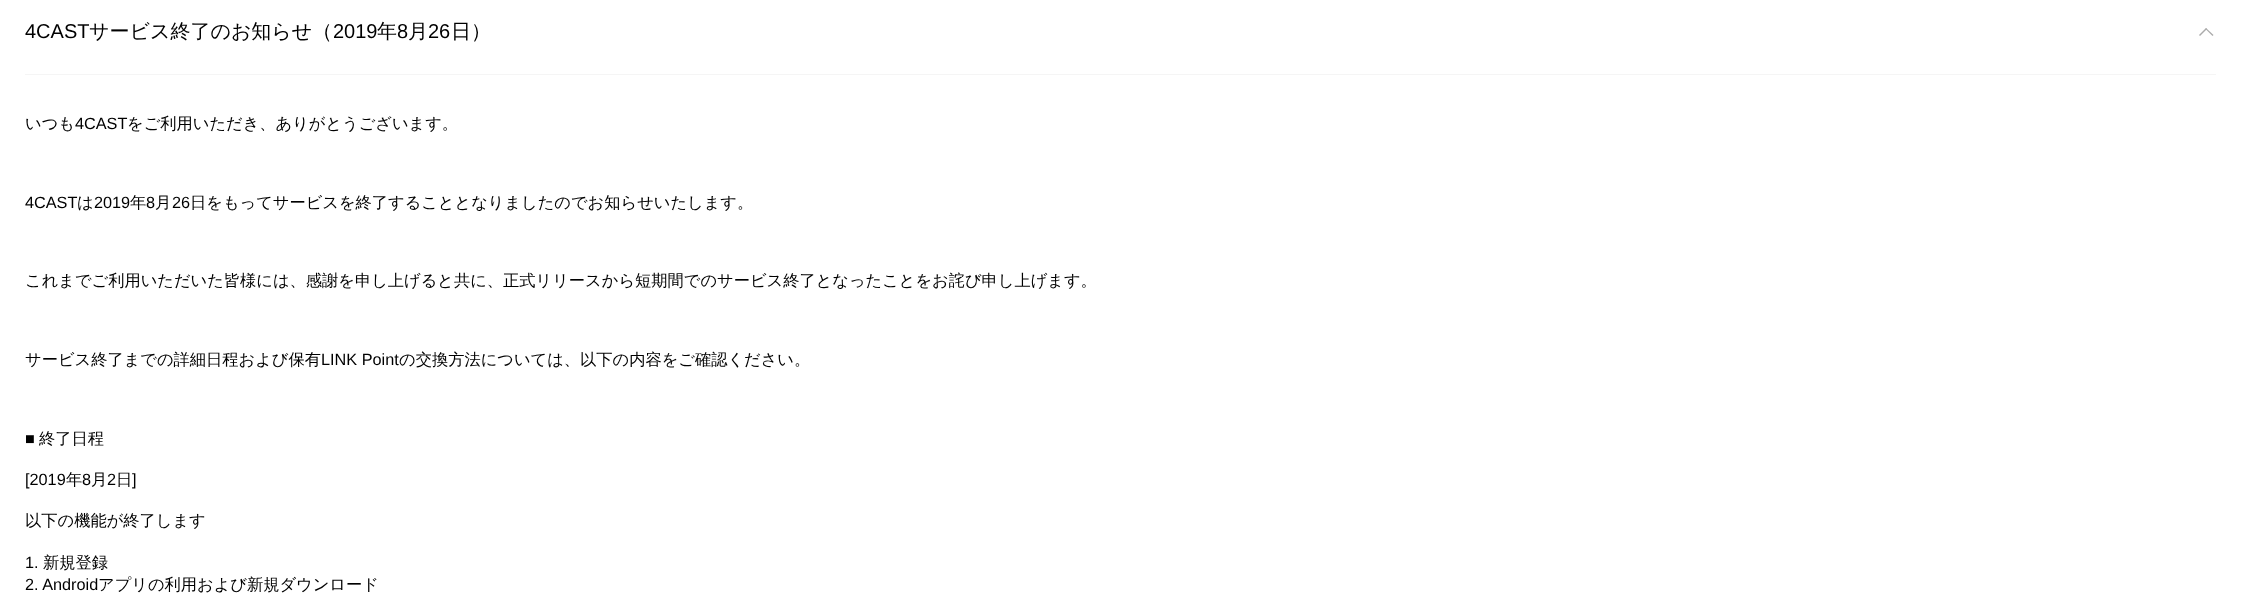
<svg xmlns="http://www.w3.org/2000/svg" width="2241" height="593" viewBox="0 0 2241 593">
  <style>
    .t1 { font: 20px Liberation Sans; fill: #000; }
    .t2 { font: 500 20px WenQuanYi Zen Hei; fill: #000; }
    .t3 { font: 500 16.25px WenQuanYi Zen Hei; fill: #000; }
    .t4 { font: 16.25px Liberation Sans; fill: #000; }
  </style>
  <rect width="100%" height="100%" fill="#fff"/>
  <text x="25" y="38" class="t1">4CAST</text>
  <text x="89" y="38" class="t2">サービス終了のお知らせ（</text>
  <text x="333" y="38" class="t1">2019</text>
  <text x="377" y="38" class="t2">年</text>
  <text x="397" y="38" class="t1">8</text>
  <text x="408" y="38" class="t2">月</text>
  <text x="428" y="38" class="t1">26</text>
  <text x="451" y="38" class="t2">日）</text>
  <path d="M2199 35L2206 28L2207 29L2200 36Z" fill="#aaa"/>
  <path d="M2205.5 29L2206 28L2213.5 35L2212.5 36Z" fill="#aaa"/>
  <rect x="25" y="74" width="2191" height="1" fill="#f5f5f5"/>
  <text x="25" y="129" class="t3">いつも</text>
  <text x="75" y="129" class="t4">4CAST</text>
  <text x="127" y="129" class="t3">をご利用いただき、ありがとうございます。</text>
  <text x="25" y="208" class="t4">4CAST</text>
  <text x="77" y="208" class="t3">は</text>
  <text x="94" y="208" class="t4">2019</text>
  <text x="130" y="208" class="t3">年</text>
  <text x="146" y="208" class="t4">8</text>
  <text x="155" y="208" class="t3">月</text>
  <text x="172" y="208" class="t4">26</text>
  <text x="190" y="208" class="t3">日をもってサービスを終了することとなりましたのでお知らせいたします。</text>
  <text x="25" y="286" class="t3">これまでご利用いただいた皆様には、感謝を申し上げると共に、正式リリースから短期間でのサービス終了となったことをお詫び申し上げます。</text>
  <text x="25" y="365" class="t3">サービス終了までの詳細日程および保有</text>
  <text x="321" y="365" class="t4">LINK Point</text>
  <text x="399" y="365" class="t3">の交換方法については、以下の内容をご確認ください。</text>
  <text x="25" y="444" class="t4">■</text>
  <text x="39" y="444" class="t3">終了日程</text>
  <text x="25" y="485" class="t4">[2019</text>
  <text x="66" y="485" class="t3">年</text>
  <text x="82" y="485" class="t4">8</text>
  <text x="91" y="485" class="t3">月</text>
  <text x="107" y="485" class="t4">2</text>
  <text x="116" y="485" class="t3">日</text>
  <text x="132" y="485" class="t4">]</text>
  <text x="25" y="526" class="t3">以下の機能が終了します</text>
  <text x="25" y="568" class="t4">1.</text>
  <text x="43" y="568" class="t3">新規登録</text>
  <text x="25" y="590" class="t4">2. Android</text>
  <text x="98" y="590" class="t3">アプリの利用および新規ダウンロード</text>
</svg>
